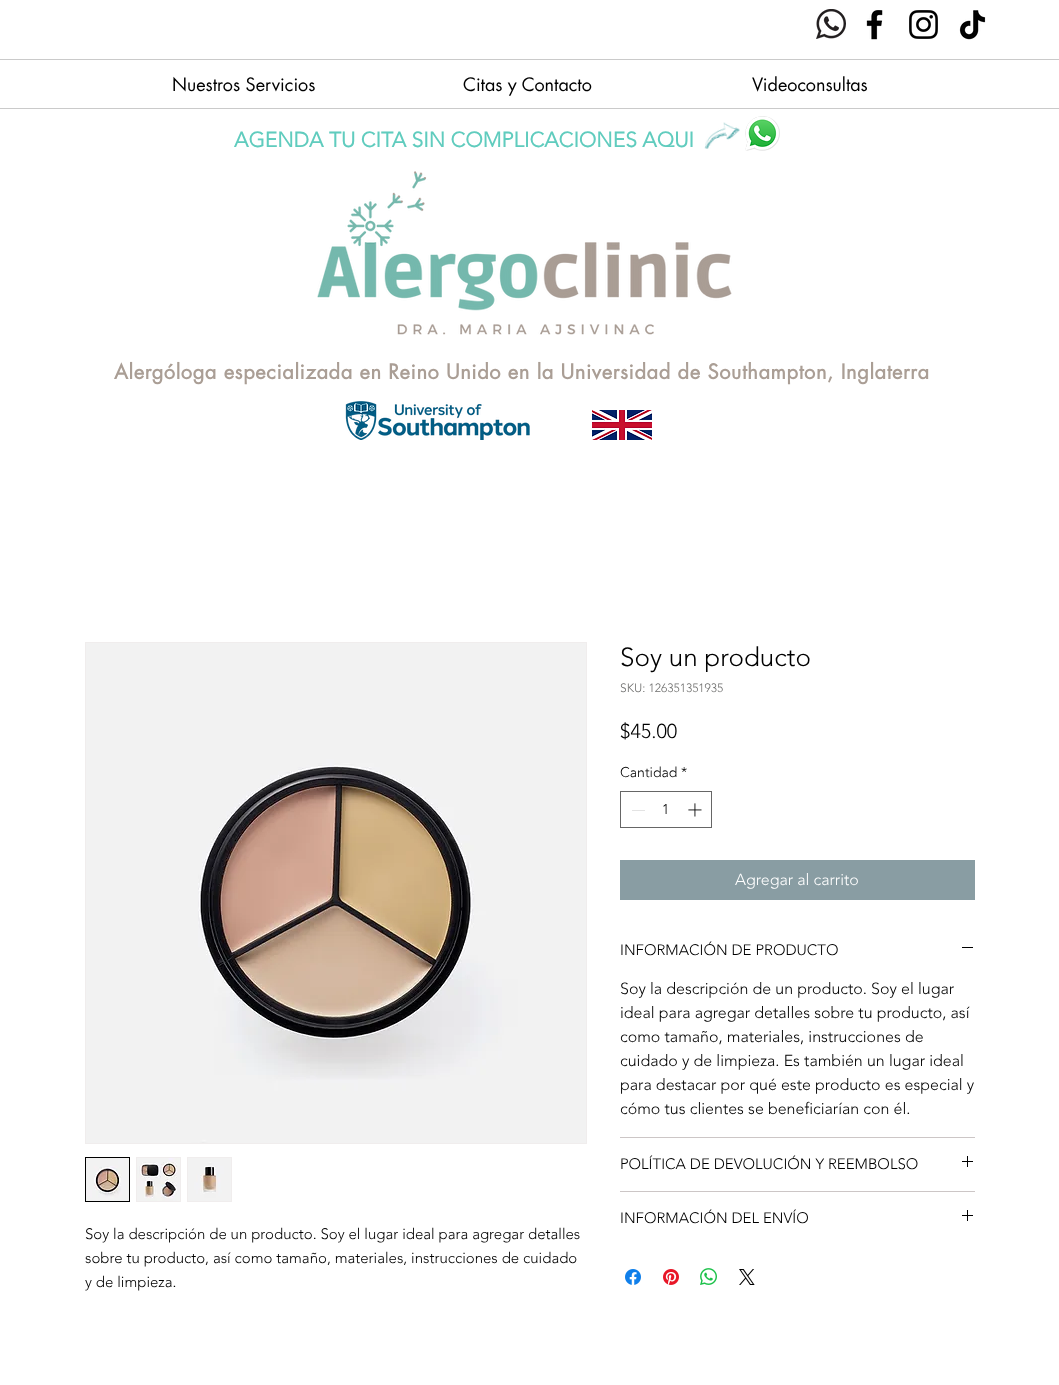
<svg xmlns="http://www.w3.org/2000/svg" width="1059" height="1385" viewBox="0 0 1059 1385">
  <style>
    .t1 { font: 18px futura; fill: #000; }
    .t2 { font: bold 21px 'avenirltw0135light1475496'; fill: #60ccbe; }
    .t3 { font: bold 20px futura; letter-spacing: 0.6px; fill: #aa9e95; }
    .t4 { font: 300 26px 'avenirltw0135light1475496'; fill: #000; }
    .t5 { font: 300 12px 'avenirltw0135light1475496'; fill: #6e6e6d; }
    .t6 { font: 300 20px 'avenirltw0135light1475496'; fill: #000; }
    .t7 { font: 300 14px 'avenirltw0135light1475496'; fill: #000; }
    .t8 { font: 300 16px 'avenirltw0135light1475496'; fill: #fff; }
    .t9 { font: 300 15px 'avenirltw0135light1475496'; fill: #000; }
    .t10 { font: 300 16px 'avenirltw0135light1475496'; fill: #000; }
  </style>
  <rect width="100%" height="100%" fill="#fff"/>
  <image x="816" y="9" width="30" height="30" href="images/1.png"/>
  <image x="866" y="10" width="17" height="30" href="images/2.png"/>
  <image x="909" y="10" width="29" height="29" href="images/3.png"/>
  <image x="959" y="10" width="27" height="30" href="images/4.png"/>
  <rect x="0" y="59" width="1059" height="1" fill="#cacaca"/>
  <rect x="0" y="108" width="1059" height="1" fill="#cacaca"/>
  <text x="172" y="91" class="t1">Nuestros Servicios</text>
  <text x="463" y="91" class="t1">Citas y Contacto</text>
  <text x="752" y="91" class="t1">Videoconsultas</text>
  <text x="234" y="147" class="t2">AGENDA TU CITA SIN COMPLICACIONES AQUI</text>
  <image x="704" y="122" width="36" height="27" href="images/5.png"/>
  <image x="745" y="116" width="35" height="35" href="images/6.png"/>
  <image x="317" y="171" width="415" height="140" href="images/7.png"/>
  <image x="397" y="324" width="257" height="11" href="images/8.png"/>
  <text x="114" y="379" class="t3">Alergóloga especializada en Reino Unido en la Universidad de Southampton, Inglaterra</text>
  <image x="345" y="401" width="185" height="39" href="images/9.png"/>
  <image x="592" y="410" width="60" height="30" href="images/10.png"/>
  <text x="620" y="666" class="t4">Soy un producto</text>
  <text x="620" y="692" class="t5">SKU: 126351351935</text>
  <text x="620" y="738" class="t6">$45.00</text>
  <text x="620" y="777" class="t7">Cantidad</text>
  <text x="681" y="777" class="t7">*</text>
  <rect x="620.5" y="791.5" width="91" height="36" fill="none" stroke="#666"/>
  <rect x="632" y="810" width="13" height="1" fill="#e3e3e3"/>
  <text x="662" y="814" class="t7">1</text>
  <image x="688" y="803" width="14" height="14" href="images/11.png"/>
  <rect x="620" y="860" width="355" height="40" fill="#899da3"/>
  <text x="735" y="885" class="t8">Agregar al carrito</text>
  <rect x="620" y="1137" width="355" height="1" fill="#ccc6c6"/>
  <text x="620" y="955" class="t9">INFORMACIÓN DE PRODUCTO</text>
  <rect x="962" y="947" width="11" height="1" fill="#000"/>
  <text x="620" y="994" class="t10">Soy la descripción de un producto. Soy el lugar</text>
  <text x="620" y="1018" class="t10">ideal para agregar detalles sobre tu producto, así</text>
  <text x="620" y="1042" class="t10">como tamaño, materiales, instrucciones de</text>
  <text x="620" y="1066" class="t10">cuidado y de limpieza. Es también un lugar ideal</text>
  <text x="620" y="1090" class="t10">para destacar por qué este producto es especial y</text>
  <text x="620" y="1114" class="t10">cómo tus clientes se beneficiarían con él.</text>
  <rect x="620" y="1191" width="355" height="1" fill="#ccc6c6"/>
  <text x="620" y="1169" class="t9">POLÍTICA DE DEVOLUCIÓN Y REEMBOLSO</text>
  <image x="962" y="1156" width="11" height="11" href="images/12.png"/>
  <text x="620" y="1223" class="t9">INFORMACIÓN DEL ENVÍO</text>
  <image x="962" y="1210" width="11" height="11" href="images/12.png"/>
  <image x="625" y="1269" width="16" height="16" href="images/13.png"/>
  <image x="663" y="1269" width="16" height="16" href="images/14.png"/>
  <image x="700" y="1268" width="17" height="17" href="images/15.png"/>
  <image x="739" y="1269" width="16" height="16" href="images/16.png"/>
  <rect x="85.5" y="642.5" width="501" height="501" fill="none" stroke="#f0eded"/>
  <image x="86" y="643" width="500" height="500" href="images/17.png"/>
  <rect x="85.5" y="1157.5" width="44" height="44" fill="none" stroke="#000"/>
  <image x="86" y="1158" width="43" height="43" href="images/18.png"/>
  <rect x="136" y="1157" width="45" height="45" fill="#f0eded"/>
  <image x="137" y="1158" width="43" height="43" href="images/19.png"/>
  <rect x="187" y="1157" width="45" height="45" fill="#f0eded"/>
  <image x="188" y="1158" width="43" height="43" href="images/20.png"/>
  <text x="85" y="1239" class="t9">Soy la descripción de un producto. Soy el lugar ideal para agregar detalles</text>
  <text x="85" y="1263" class="t9">sobre tu producto, así como tamaño, materiales, instrucciones de cuidado</text>
  <text x="85" y="1287" class="t9">y de limpieza.</text>
</svg>
